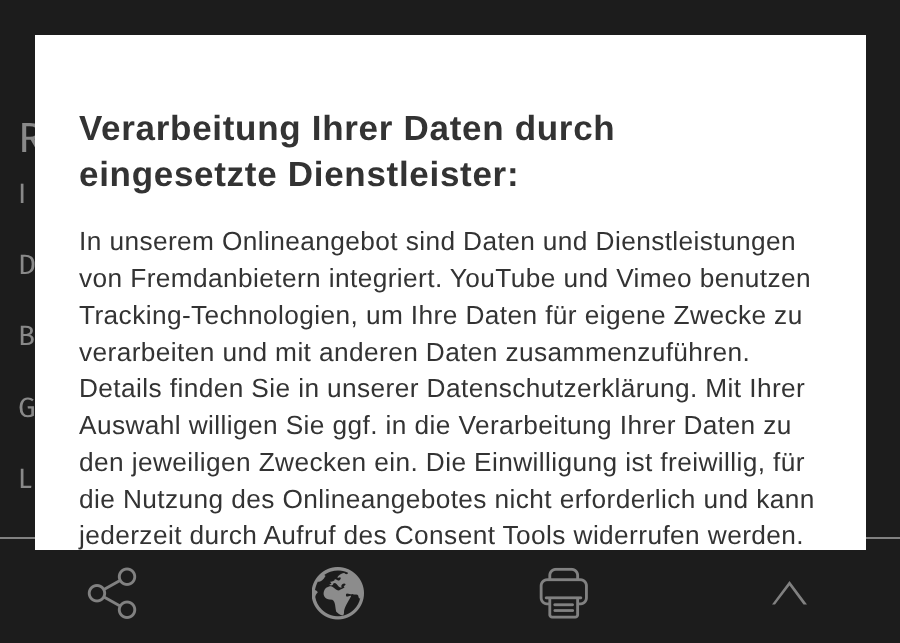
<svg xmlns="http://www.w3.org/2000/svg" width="900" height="643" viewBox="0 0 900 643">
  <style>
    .t1 { font: 42px Fira Sans; letter-spacing: 1px; fill: #898989; }
    .t2 { font: 28px Fira Sans; fill: #898989; }
    .t3 { font: bold 35px Liberation Sans; letter-spacing: 0.7px; fill: #333; }
    .t4 { font: 26.25px Liberation Sans; letter-spacing: 0.4px; fill: #333; }
  </style>
  <rect width="100%" height="100%" fill="#1c1c1c"/>
  <text x="18" y="152" class="t1">R</text>
  <text x="18" y="203" class="t2">I</text>
  <text x="18" y="274" class="t2">D</text>
  <text x="18" y="345" class="t2">B</text>
  <text x="18" y="417" class="t2">G</text>
  <text x="18" y="488" class="t2">L</text>
  <rect x="0" y="537" width="900" height="2" fill="#818181"/>
  <rect x="35" y="35" width="831" height="515" fill="#fff"/>
  <text x="79" y="140" class="t3">Verarbeitung Ihrer Daten durch</text>
  <text x="79" y="186" class="t3">eingesetzte Dienstleister:</text>
  <text x="79" y="250" class="t4">In unserem Onlineangebot sind Daten und Dienstleistungen</text>
  <text x="79" y="287" class="t4">von Fremdanbietern integriert. YouTube und Vimeo benutzen</text>
  <text x="79" y="324" class="t4">Tracking-Technologien, um Ihre Daten für eigene Zwecke zu</text>
  <text x="79" y="361" class="t4">verarbeiten und mit anderen Daten zusammenzuführen.</text>
  <text x="79" y="397" class="t4">Details finden Sie in unserer Datenschutzerklärung. Mit Ihrer</text>
  <text x="79" y="434" class="t4">Auswahl willigen Sie ggf. in die Verarbeitung Ihrer Daten zu</text>
  <text x="79" y="471" class="t4">den jeweiligen Zwecken ein. Die Einwilligung ist freiwillig, für</text>
  <text x="79" y="508" class="t4">die Nutzung des Onlineangebotes nicht erforderlich und kann</text>
  <text x="79" y="544" class="t4">jederzeit durch Aufruf des Consent Tools widerrufen werden.</text>
  <image x="87" y="567" width="50" height="52" href="images/1.png"/>
  <image x="312" y="567" width="52" height="53" href="images/2.png"/>
  <image x="539" y="567" width="49" height="52" href="images/3.png"/>
  <path d="M789.5 581L772 604.5H775L789.5 585.5L803.5 604.5H807Z" fill="#818181"/>
</svg>
